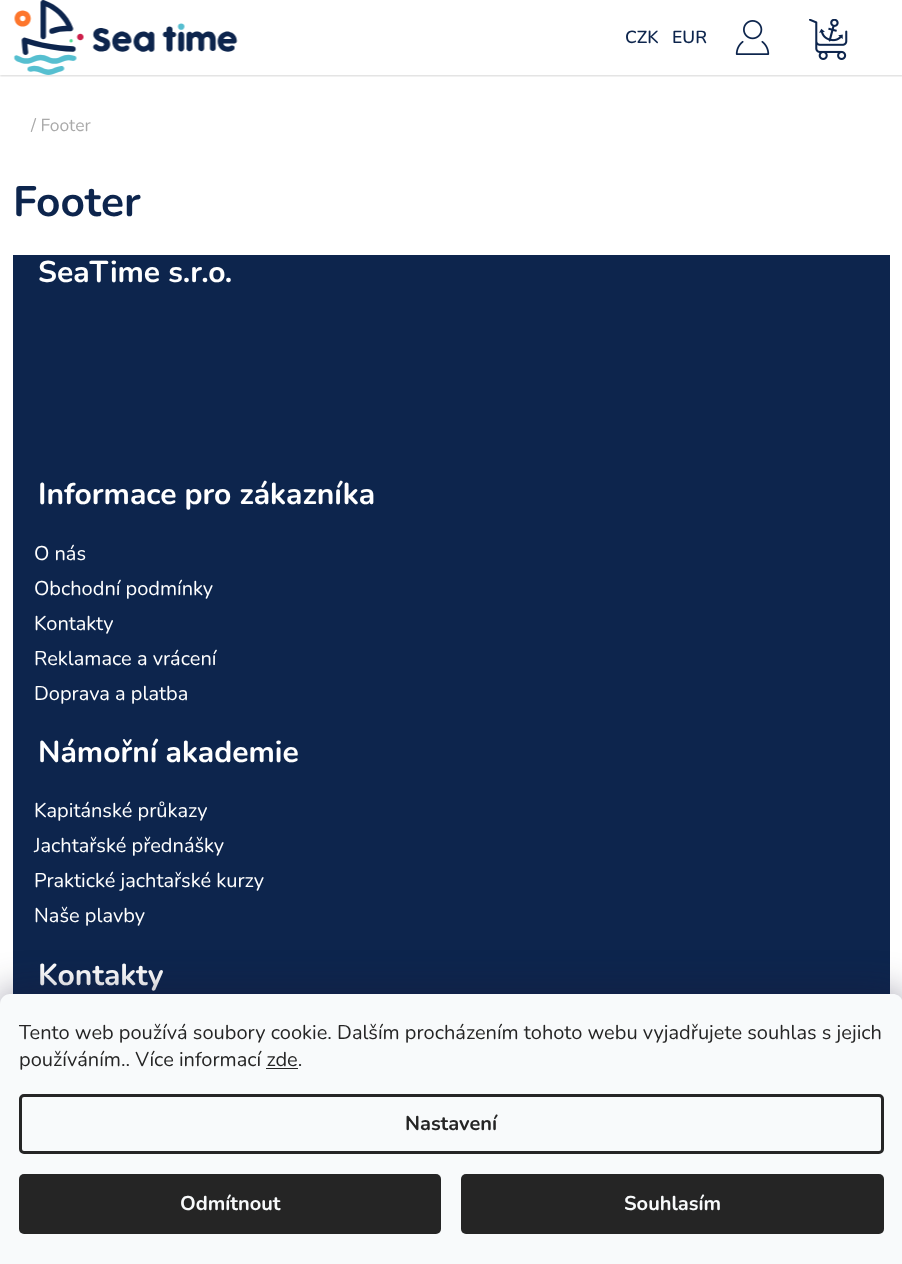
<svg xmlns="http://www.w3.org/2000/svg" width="902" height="1264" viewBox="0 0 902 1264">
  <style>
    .t1 { font: 600 17.5px Nunito; fill: #0d254d; }
    .t2 { font: 17.5px Nunito; fill: #aaa; }
    .t3 { font: 200 42.5px Nunito; fill: #0d254d; }
    .t4 { font: 200 30px Nunito; fill: #fff; }
    .t5 { font: 20px Nunito; fill: #fff; }
    .t6 { font: 20px Nunito; fill: #252525; }
    .t7 { font: 200 20px Nunito; fill: #252525; }
    .t8 { font: 200 20px Nunito; fill: #f8fafb; }
  </style>
  <defs>
    <clipPath id="clip1"><rect x="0" y="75" width="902" height="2"/></clipPath>
  </defs>
  <rect width="100%" height="100%" fill="#fff"/>
  <g clip-path="url(#clip1)">
    <rect x="0" y="1" width="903" height="75" fill="#00000029" filter="blur(1px)"/>
  </g>
  <image x="13" y="0" width="225" height="75" href="images/1.png"/>
  <text x="625" y="43" class="t1">CZK</text>
  <text x="672" y="43" class="t1">EUR</text>
  <image x="735" y="20" width="35" height="35" href="images/2.png"/>
  <image x="809" y="19" width="39" height="41" href="images/3.png"/>
  <text x="31" y="131" class="t2">/ Footer</text>
  <text x="13" y="216" class="t3">Footer</text>
  <rect x="13" y="255" width="877" height="739" fill="#0d254d"/>
  <text x="38" y="282" class="t4">SeaTime s.r.o.</text>
  <text x="38" y="504" class="t4">Informace pro zákazníka</text>
  <text x="34" y="560" class="t5">O nás</text>
  <text x="34" y="595" class="t5">Obchodní podmínky</text>
  <text x="34" y="630" class="t5">Kontakty</text>
  <text x="34" y="665" class="t5">Reklamace a vrácení</text>
  <text x="34" y="700" class="t5">Doprava a platba</text>
  <text x="38" y="762" class="t4">Námořní akademie</text>
  <text x="34" y="817" class="t5">Kapitánské průkazy</text>
  <text x="34" y="852" class="t5">Jachtařské přednášky</text>
  <text x="34" y="887" class="t5">Praktické jachtařské kurzy</text>
  <text x="34" y="922" class="t5">Naše plavby</text>
  <text x="38" y="985" class="t4">Kontakty</text>
  <rect x="0" y="994" width="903" height="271" rx="10" fill="#1b193980" filter="blur(19px)"/>
  <path d="M10 994H893C898.5 994 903 998.5 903 1004V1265H0V1004C0 998.5 4.5 994 10 994Z" fill="#f8fafb"/>
  <text x="19" y="1039" class="t6">Tento web používá soubory cookie. Dalším procházením tohoto webu vyjadřujete souhlas s jejich</text>
  <text x="19" y="1066" class="t6">používáním.. Více informací zde.</text>
  <rect x="266" y="1068" width="32" height="1" fill="#252525"/>
  <rect x="20.5" y="1095.5" width="862" height="57" rx="3.5" fill="none" stroke="#252525" stroke-width="3"/>
  <text x="405" y="1130" class="t7">Nastavení</text>
  <rect x="19" y="1174" width="422" height="60" rx="5" fill="#252525"/>
  <text x="180" y="1210" class="t8">Odmítnout</text>
  <rect x="461" y="1174" width="423" height="60" rx="5" fill="#252525"/>
  <text x="624" y="1210" class="t8">Souhlasím</text>
</svg>
